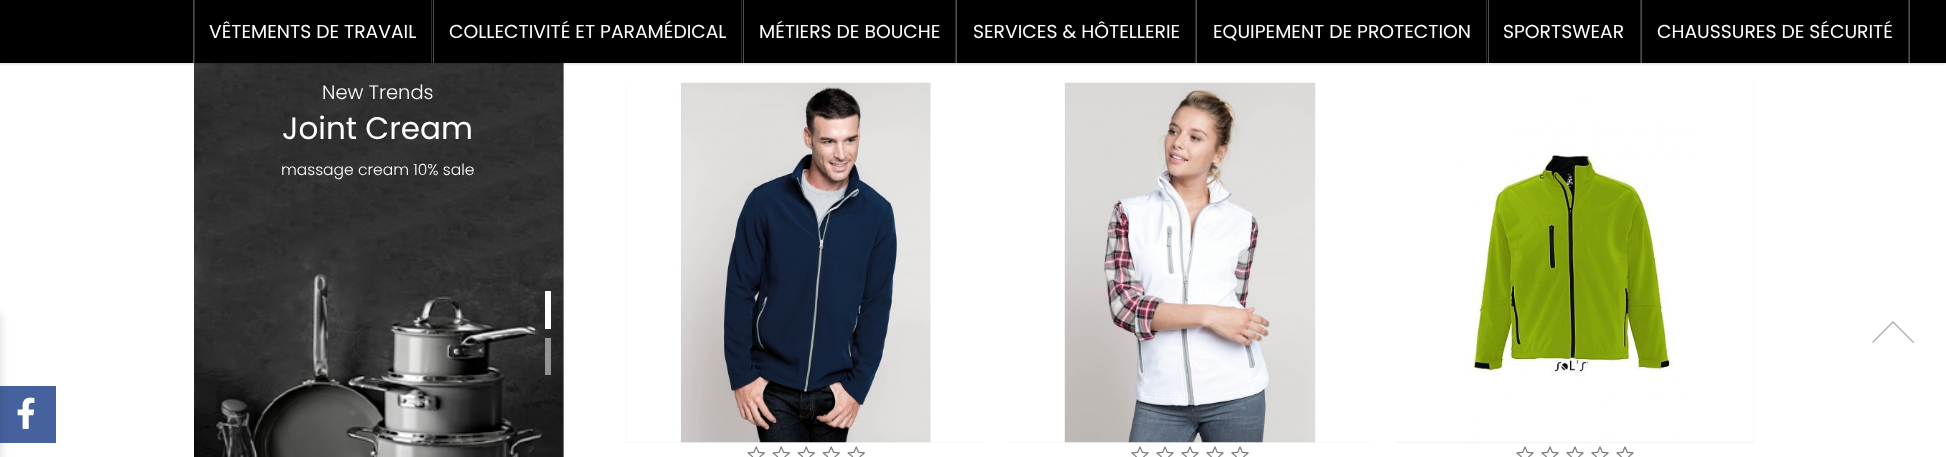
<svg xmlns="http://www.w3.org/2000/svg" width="1946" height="457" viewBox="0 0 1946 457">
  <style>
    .t1 { font: 18.75px Poppins; fill: #fff; }
    .t2 { font: 300 19.5px Poppins; fill: #fff; }
    .t3 { font: 31px Poppins; fill: #fff; }
    .t4 { font: 300 15.5px Poppins; fill: #fff; }
  </style>
  <rect width="100%" height="100%" fill="#fff"/>
  <image x="194" y="63" width="370" height="394" href="images/1.png"/>
  <rect x="0" y="1" width="1946" height="63" fill="#00000026" filter="blur(1px)"/>
  <rect x="0" y="0" width="1946" height="63" fill="#000"/>
  <rect x="193" y="0" width="1" height="63" fill="#515050"/>
  <rect x="431" y="0" width="1" height="63" fill="#2e2e2e"/>
  <rect x="194" y="0" width="1" height="63" fill="#2e2e2e"/>
  <text x="209" y="38" class="t1">VÊTEMENTS DE TRAVAIL</text>
  <rect x="433" y="0" width="1" height="63" fill="#515050"/>
  <rect x="741" y="0" width="1" height="63" fill="#2e2e2e"/>
  <text x="449" y="38" class="t1">COLLECTIVITÉ ET PARAMÉDICAL</text>
  <rect x="743" y="0" width="1" height="63" fill="#515050"/>
  <rect x="955" y="0" width="1" height="63" fill="#2e2e2e"/>
  <text x="759" y="38" class="t1">MÉTIERS DE BOUCHE</text>
  <rect x="956" y="0" width="1" height="63" fill="#515050"/>
  <rect x="1195" y="0" width="1" height="63" fill="#2e2e2e"/>
  <text x="973" y="38" class="t1">SERVICES &amp; HÔTELLERIE</text>
  <rect x="1196" y="0" width="1" height="63" fill="#515050"/>
  <rect x="1486" y="0" width="1" height="63" fill="#2e2e2e"/>
  <text x="1213" y="38" class="t1">EQUIPEMENT DE PROTECTION</text>
  <rect x="1488" y="0" width="1" height="63" fill="#515050"/>
  <rect x="1640" y="0" width="1" height="63" fill="#2e2e2e"/>
  <text x="1503" y="38" class="t1">SPORTSWEAR</text>
  <rect x="1909" y="0" width="1" height="63" fill="#515050"/>
  <rect x="1641" y="0" width="1" height="63" fill="#515050"/>
  <rect x="1908" y="0" width="1" height="63" fill="#2e2e2e"/>
  <text x="1657" y="38" class="t1">CHAUSSURES DE SÉCURITÉ</text>
  <text x="322" y="99" class="t2">New Trends</text>
  <text x="282" y="139" class="t3">Joint Cream</text>
  <text x="281" y="175" class="t4">massage cream 10% sale</text>
  <rect x="545" y="291" width="6" height="38" fill="#fff"/>
  <rect x="545" y="338" width="6" height="37" fill="#ffffff80"/>
  <rect x="626" y="83" width="359" height="360" fill="#f4f4f4"/>
  <image x="626" y="82" width="359" height="361" href="images/2.png"/>
  <image x="747" y="446" width="18" height="11" href="images/3.png"/>
  <image x="772" y="446" width="18" height="11" href="images/3.png"/>
  <image x="797" y="446" width="18" height="11" href="images/3.png"/>
  <image x="822" y="446" width="18" height="11" href="images/3.png"/>
  <image x="847" y="446" width="18" height="11" href="images/3.png"/>
  <rect x="1010" y="442" width="360" height="1" fill="#f4f4f4"/>
  <image x="1010" y="82" width="360" height="361" href="images/4.png"/>
  <image x="1131" y="446" width="18" height="11" href="images/5.png"/>
  <image x="1156" y="446" width="18" height="11" href="images/5.png"/>
  <image x="1181" y="446" width="18" height="11" href="images/5.png"/>
  <image x="1206" y="446" width="18" height="11" href="images/5.png"/>
  <image x="1231" y="446" width="18" height="11" href="images/5.png"/>
  <rect x="1395" y="83" width="359" height="360" fill="#f4f4f4"/>
  <image x="1395" y="83" width="359" height="359" href="images/6.png"/>
  <image x="1516" y="446" width="18" height="11" href="images/5.png"/>
  <image x="1541" y="446" width="18" height="11" href="images/5.png"/>
  <image x="1566" y="446" width="18" height="11" href="images/5.png"/>
  <image x="1591" y="446" width="18" height="11" href="images/5.png"/>
  <image x="1616" y="446" width="18" height="11" href="images/5.png"/>
  <rect x="0" y="386" width="56" height="57" fill="#46629e"/>
  <rect x="-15" y="313" width="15" height="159" fill="#00000029" filter="blur(5px)"/>
  <image x="17" y="397" width="18" height="32" href="images/7.png"/>
  <path d="M1893 321L1872 342L1873 343L1893 323L1913 343C1914 343 1915 342 1914 342Z" fill="#b2b2b2"/>
</svg>
